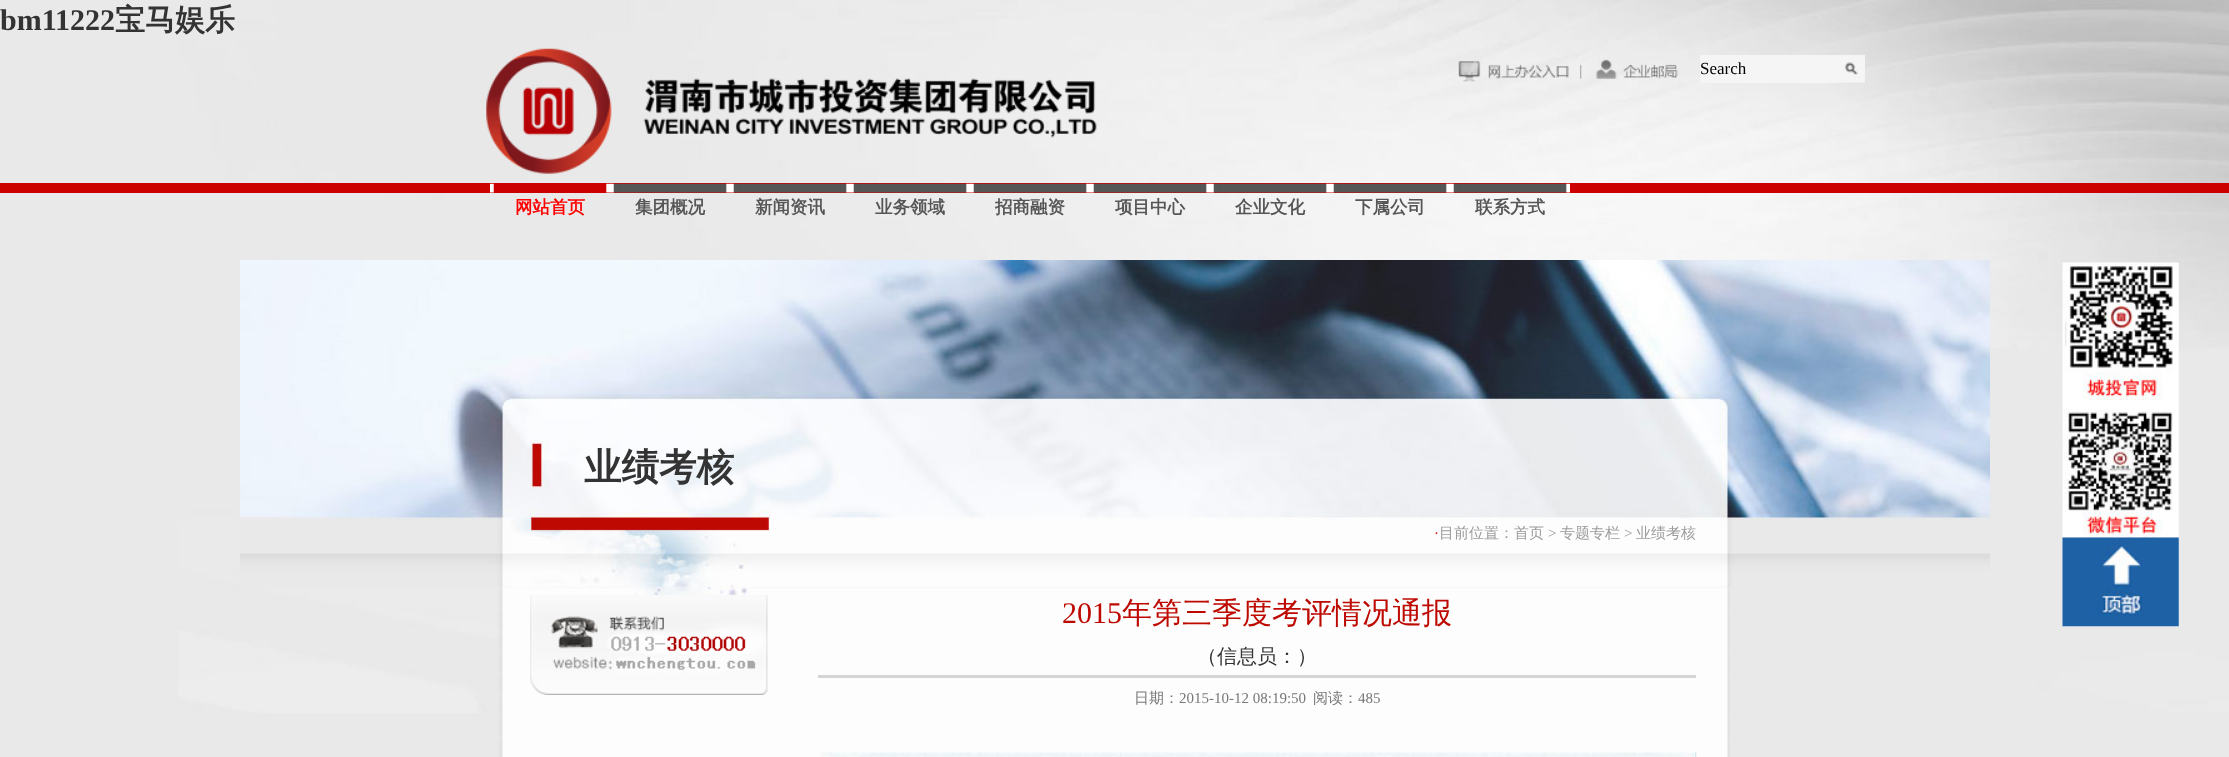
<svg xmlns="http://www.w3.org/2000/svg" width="2229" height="757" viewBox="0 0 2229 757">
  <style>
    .t1 { font: bold 30px Liberation Serif; fill: #333; }
    .t2 { font: bold 30px WenQuanYi Zen Hei; fill: #333; }
    .t3 { font: 17px Liberation Serif; fill: #000; }
    .t4 { font: bold 17.5px WenQuanYi Zen Hei; fill: #f00; }
    .t5 { font: bold 17.5px WenQuanYi Zen Hei; fill: #565656; }
    .t6 { font: bold 37.5px WenQuanYi Zen Hei; fill: #333; }
    .t7 { font: 15px Liberation Serif; fill: #d50201; }
    .t8 { font: 500 15px WenQuanYi Zen Hei; fill: #9d9c9c; }
    .t9 { font: 15px Liberation Serif; fill: #9d9c9c; }
    .t10 { font: 30px Liberation Serif; fill: #bd0900; }
    .t11 { font: 500 30px WenQuanYi Zen Hei; fill: #bd0900; }
    .t12 { font: 500 20px WenQuanYi Zen Hei; fill: #333; }
    .t13 { font: 500 15px WenQuanYi Zen Hei; fill: #777; }
    .t14 { font: 15px Liberation Serif; fill: #777; }
  </style>
  <rect width="100%" height="100%" fill="#e9e9e9"/>
  <image x="178" y="0" width="2051" height="713" href="images/1.png"/>
  <text x="0" y="30" class="t1">bm11222</text>
  <text x="115" y="30" class="t2">宝马娱乐</text>
  <image x="486" y="48" width="611" height="126" href="images/2.png"/>
  <image x="1458" y="61" width="111" height="21" href="images/3.png"/>
  <image x="1580" y="59" width="98" height="20" href="images/4.png"/>
  <rect x="1700" y="55" width="138" height="28" fill="#f5f5f5"/>
  <text x="1700" y="74" class="t3">Search</text>
  <image x="1838" y="55" width="27" height="28" href="images/5.png"/>
  <rect x="0" y="183" width="2229" height="10" fill="#cd0000"/>
  <image x="490" y="183" width="120" height="10" href="images/6.png"/>
  <text x="515" y="213" class="t4">网站首页</text>
  <image x="610" y="183" width="120" height="10" href="images/7.png"/>
  <text x="635" y="213" class="t5">集团概况</text>
  <image x="730" y="183" width="120" height="10" href="images/7.png"/>
  <text x="755" y="213" class="t5">新闻资讯</text>
  <image x="850" y="183" width="120" height="10" href="images/7.png"/>
  <text x="875" y="213" class="t5">业务领域</text>
  <image x="970" y="183" width="120" height="10" href="images/7.png"/>
  <text x="995" y="213" class="t5">招商融资</text>
  <image x="1090" y="183" width="120" height="10" href="images/7.png"/>
  <text x="1115" y="213" class="t5">项目中心</text>
  <image x="1210" y="183" width="120" height="10" href="images/7.png"/>
  <text x="1235" y="213" class="t5">企业文化</text>
  <image x="1330" y="183" width="120" height="10" href="images/7.png"/>
  <text x="1355" y="213" class="t5">下属公司</text>
  <image x="1450" y="183" width="120" height="10" href="images/7.png"/>
  <text x="1475" y="213" class="t5">联系方式</text>
  <image x="240" y="260" width="1750" height="328" href="images/8.png"/>
  <text x="584" y="480" class="t6">业绩考核</text>
  <text x="1434" y="538" class="t7">·</text>
  <text x="1439" y="538" class="t8">目前位置：首页</text>
  <text x="1548" y="538" class="t9">&gt;</text>
  <text x="1560" y="538" class="t8">专题专栏</text>
  <text x="1624" y="538" class="t9">&gt;</text>
  <text x="1636" y="538" class="t8">业绩考核</text>
  <image x="2062" y="262" width="117" height="138" href="images/9.png"/>
  <image x="2062" y="400" width="117" height="138" href="images/10.png"/>
  <image x="2062" y="537" width="117" height="90" href="images/11.png"/>
  <image x="498" y="587" width="1232" height="170" href="images/12.png"/>
  <image x="633" y="587" width="117" height="8" href="images/13.png"/>
  <image x="530" y="595" width="238" height="100" href="images/14.png"/>
  <rect x="818" y="675" width="878" height="3" fill="#d5d5d5"/>
  <text x="1062" y="623" class="t10">2015</text>
  <text x="1122" y="623" class="t11">年第三季度考评情况通报</text>
  <text x="1197" y="663" class="t12">（信息员：）</text>
  <text x="1134" y="703" class="t13">日期：</text>
  <text x="1179" y="703" class="t14">2015-10-12 08:19:50</text>
  <text x="1313" y="703" class="t13">阅读：</text>
  <text x="1358" y="703" class="t14">485</text>
  <image x="821" y="752" width="876" height="5" href="images/15.png"/>
</svg>
